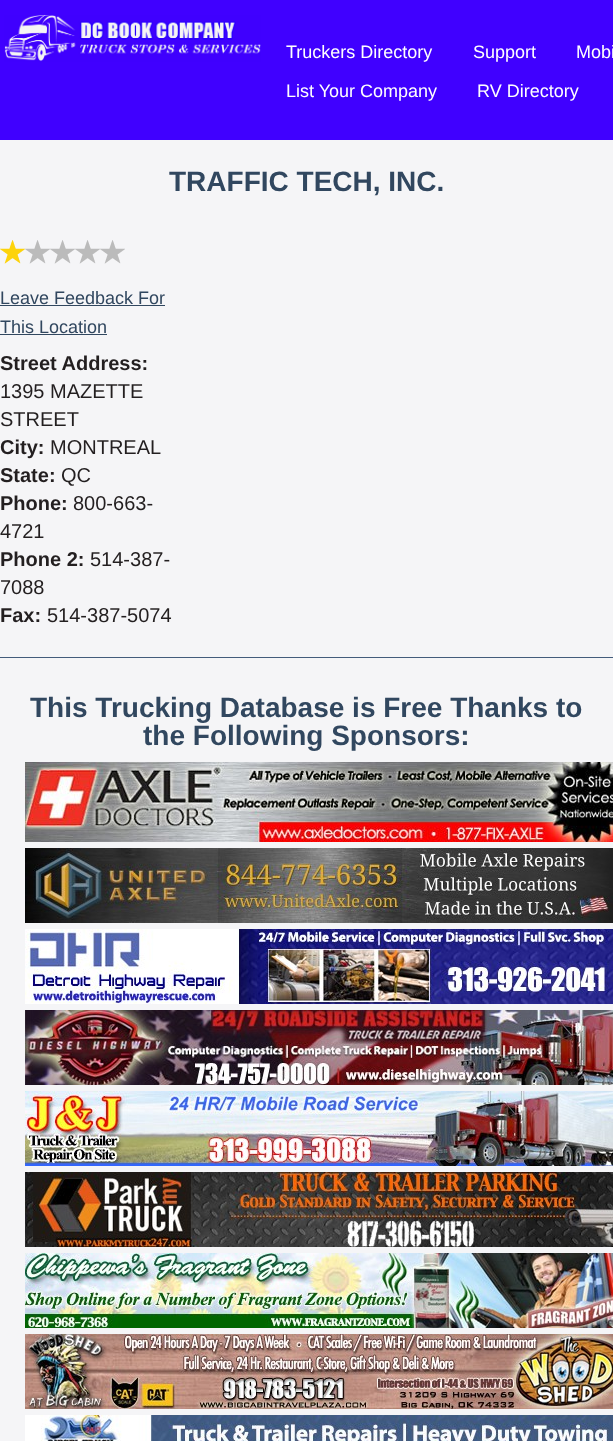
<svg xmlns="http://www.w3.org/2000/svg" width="613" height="1441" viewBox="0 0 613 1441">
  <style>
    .t1 { font: 18px Liberation Sans; fill: #fff; }
    .t2 { font: bold 28px Liberation Sans; fill: #31475f; }
    .t3 { font: 18px Liberation Sans; fill: #31475f; }
    .t4 { font: bold 20px Liberation Sans; fill: #231f20; }
    .t5 { font: 20px Liberation Sans; fill: #231f20; }
  </style>
  <rect width="100%" height="100%" fill="#f5f5f7"/>
  <rect x="0" y="0" width="613" height="140" fill="#4000ff"/>
  <image x="4" y="15" width="257" height="47" href="images/1.png"/>
  <text x="286" y="58" class="t1">Truckers Directory</text>
  <text x="473" y="58" class="t1">Support</text>
  <text x="576" y="58" class="t1">Mobi</text>
  <text x="286" y="97" class="t1">List Your Company</text>
  <text x="477" y="97" class="t1">RV Directory</text>
  <text x="169" y="191" class="t2">TRAFFIC TECH, INC.</text>
  <image x="0" y="240" width="25" height="24" href="images/2.png"/>
  <image x="25" y="240" width="25" height="24" href="images/3.png"/>
  <image x="50" y="240" width="25" height="24" href="images/3.png"/>
  <image x="75" y="240" width="25" height="24" href="images/3.png"/>
  <image x="100" y="240" width="25" height="24" href="images/3.png"/>
  <text x="0" y="304" class="t3">Leave Feedback For</text>
  <rect x="0" y="305" width="165" height="1" fill="#31475f"/>
  <text x="0" y="333" class="t3">This Location</text>
  <rect x="0" y="334" width="107" height="1" fill="#31475f"/>
  <text x="0" y="370" class="t4">Street Address:</text>
  <text x="0" y="398" class="t5">1395 MAZETTE</text>
  <text x="0" y="426" class="t5">STREET</text>
  <text x="0" y="454" class="t4">City:</text>
  <text x="50" y="454" class="t5">MONTREAL</text>
  <text x="0" y="482" class="t4">State:</text>
  <text x="61" y="482" class="t5">QC</text>
  <text x="0" y="510" class="t4">Phone:</text>
  <text x="73" y="510" class="t5">800-663-</text>
  <text x="0" y="538" class="t5">4721</text>
  <text x="0" y="566" class="t4">Phone 2:</text>
  <text x="90" y="566" class="t5">514-387-</text>
  <text x="0" y="594" class="t5">7088</text>
  <text x="0" y="622" class="t4">Fax:</text>
  <text x="47" y="622" class="t5">514-387-5074</text>
  <rect x="0" y="657" width="613" height="1" fill="#435c7b"/>
  <text x="30" y="717" class="t2">This Trucking Database is Free Thanks to</text>
  <text x="143" y="745" class="t2">the Following Sponsors:</text>
  <image x="25" y="762" width="588" height="80" href="images/4.png"/>
  <image x="25" y="848" width="588" height="75" href="images/5.png"/>
  <image x="25" y="929" width="588" height="75" href="images/6.png"/>
  <image x="25" y="1010" width="588" height="75" href="images/7.png"/>
  <image x="25" y="1091" width="588" height="75" href="images/8.png"/>
  <image x="25" y="1172" width="588" height="75" href="images/9.png"/>
  <image x="25" y="1253" width="588" height="75" href="images/10.png"/>
  <image x="25" y="1334" width="588" height="75" href="images/11.png"/>
  <image x="25" y="1415" width="588" height="26" href="images/12.png"/>
</svg>
